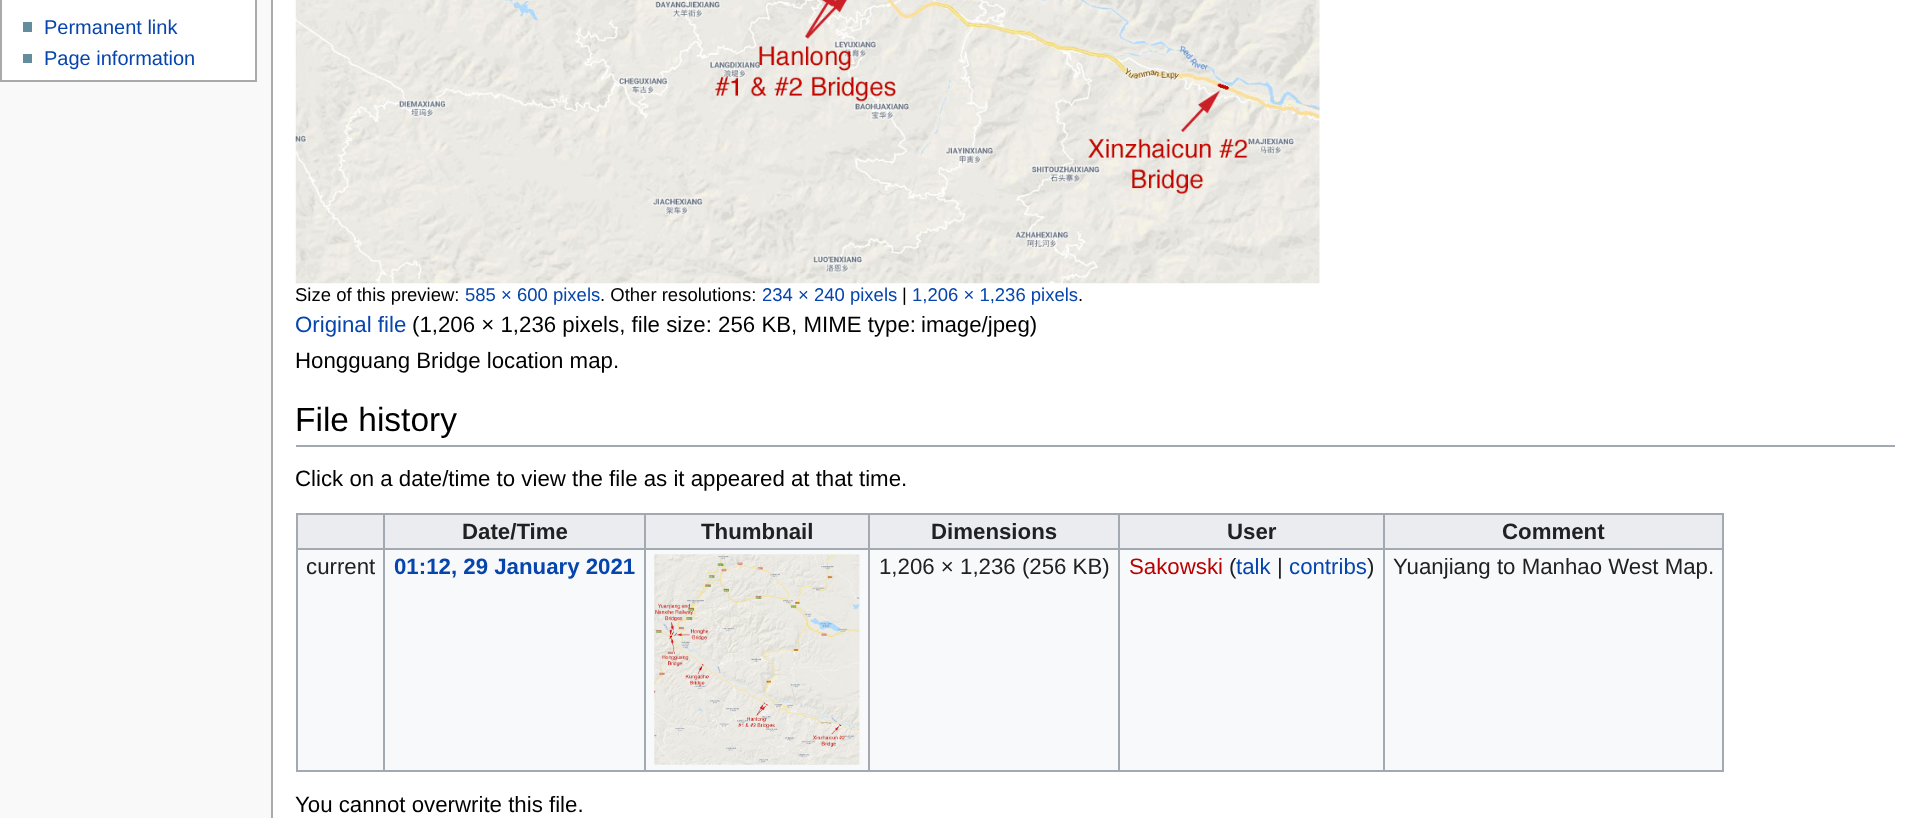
<svg xmlns="http://www.w3.org/2000/svg" width="1917" height="818" viewBox="0 0 1917 818">
  <style>
    .t1 { font: 20px Liberation Sans; fill: #0645ad; }
    .t2 { font: 18.5px Liberation Sans; fill: #000; }
    .t3 { font: 18.5px Liberation Sans; fill: #0645ad; }
    .t4 { font: 22.25px Liberation Sans; fill: #0645ad; }
    .t5 { font: 22.25px Liberation Sans; fill: #000; }
    .t6 { font: 33.5px Liberation Sans; fill: #000; }
    .t7 { font: bold 22.25px Liberation Sans; fill: #202122; }
    .t8 { font: 22.25px Liberation Sans; fill: #202122; }
    .t9 { font: bold 22.25px Liberation Sans; fill: #0645ad; }
    .t10 { font: 22.25px Liberation Sans; fill: #ba0000; }
  </style>
  <rect width="100%" height="100%" fill="#f9f9f9"/>
  <rect x="1" y="-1" width="255" height="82" fill="#fff" stroke="#aaa" stroke-width="2"/>
  <rect x="23" y="22" width="9" height="10" fill="#638c9c"/>
  <text x="44" y="34" class="t1">Permanent link</text>
  <rect x="23" y="54" width="9" height="9" fill="#638c9c"/>
  <text x="44" y="65" class="t1">Page information</text>
  <rect x="273" y="0" width="1644" height="818" fill="#fff"/>
  <rect x="271" y="0" width="2" height="818" fill="#aaa"/>
  <image x="295" y="0" width="1025" height="284" href="images/1.png"/>
  <text x="295" y="301" class="t2">Size of this preview:</text>
  <text x="465" y="301" class="t3">585 × 600 pixels</text>
  <text x="600" y="301" class="t2">. Other resolutions:</text>
  <text x="762" y="301" class="t3">234 × 240 pixels</text>
  <text x="902" y="301" class="t2">|</text>
  <text x="912" y="301" class="t3">1,206 × 1,236 pixels</text>
  <text x="1078" y="301" class="t2">.</text>
  <text x="295" y="332" class="t4">Original file</text>
  <text x="412" y="332" class="t5">(1,206 × 1,236 pixels, file size: 256 KB, MIME type:</text>
  <text x="921" y="332" class="t5">image/jpeg)</text>
  <text x="295" y="368" class="t5">Hongguang Bridge location map.</text>
  <rect x="296" y="445" width="1599" height="2" fill="#a2a9b1"/>
  <text x="295" y="431" class="t6">File history</text>
  <text x="295" y="486" class="t5">Click on a date/time to view the file as it appeared at that time.</text>
  <rect x="298" y="550" width="1424" height="220" fill="#f8f9fa"/>
  <rect x="296" y="513" width="1428" height="2" fill="#a2a9b1"/>
  <rect x="1722" y="513" width="2" height="259" fill="#a2a9b1"/>
  <rect x="296" y="770" width="1428" height="2" fill="#a2a9b1"/>
  <rect x="296" y="513" width="2" height="259" fill="#a2a9b1"/>
  <rect x="298" y="515" width="85" height="33" fill="#eaecf0"/>
  <rect x="385" y="515" width="259" height="33" fill="#eaecf0"/>
  <rect x="1383" y="548" width="341" height="2" fill="#a2a9b1"/>
  <rect x="1383" y="548" width="2" height="224" fill="#a2a9b1"/>
  <rect x="1118" y="548" width="266" height="2" fill="#a2a9b1"/>
  <rect x="1118" y="548" width="2" height="224" fill="#a2a9b1"/>
  <rect x="868" y="548" width="252" height="2" fill="#a2a9b1"/>
  <rect x="868" y="548" width="2" height="224" fill="#a2a9b1"/>
  <rect x="644" y="548" width="226" height="2" fill="#a2a9b1"/>
  <rect x="644" y="548" width="2" height="224" fill="#a2a9b1"/>
  <rect x="383" y="548" width="263" height="2" fill="#a2a9b1"/>
  <rect x="383" y="548" width="2" height="224" fill="#a2a9b1"/>
  <rect x="296" y="548" width="89" height="2" fill="#a2a9b1"/>
  <rect x="383" y="513" width="2" height="37" fill="#a2a9b1"/>
  <text x="462" y="539" class="t7">Date/Time</text>
  <rect x="646" y="515" width="222" height="33" fill="#eaecf0"/>
  <rect x="644" y="513" width="2" height="37" fill="#a2a9b1"/>
  <text x="701" y="539" class="t7">Thumbnail</text>
  <rect x="870" y="515" width="248" height="33" fill="#eaecf0"/>
  <rect x="868" y="513" width="2" height="37" fill="#a2a9b1"/>
  <text x="931" y="539" class="t7">Dimensions</text>
  <rect x="1120" y="515" width="263" height="33" fill="#eaecf0"/>
  <rect x="1118" y="513" width="2" height="37" fill="#a2a9b1"/>
  <text x="1227" y="539" class="t7">User</text>
  <rect x="1385" y="515" width="337" height="33" fill="#eaecf0"/>
  <rect x="1383" y="513" width="2" height="37" fill="#a2a9b1"/>
  <text x="1502" y="539" class="t7">Comment</text>
  <text x="306" y="574" class="t8">current</text>
  <text x="394" y="574" class="t9">01:12, 29 January 2021</text>
  <image x="654" y="554" width="206" height="211" href="images/2.png"/>
  <image x="654" y="554" width="206" height="211" href="images/3.png"/>
  <text x="879" y="574" class="t8">1,206 × 1,236 (256 KB)</text>
  <text x="1129" y="574" class="t10">Sakowski</text>
  <text x="1229" y="574" class="t8">(</text>
  <text x="1236" y="574" class="t4">talk</text>
  <text x="1277" y="574" class="t8">|</text>
  <text x="1289" y="574" class="t4">contribs</text>
  <text x="1367" y="574" class="t8">)</text>
  <text x="1393" y="574" class="t8">Yuanjiang to Manhao West Map.</text>
  <text x="295" y="812" class="t5">You cannot overwrite this file.</text>
</svg>
